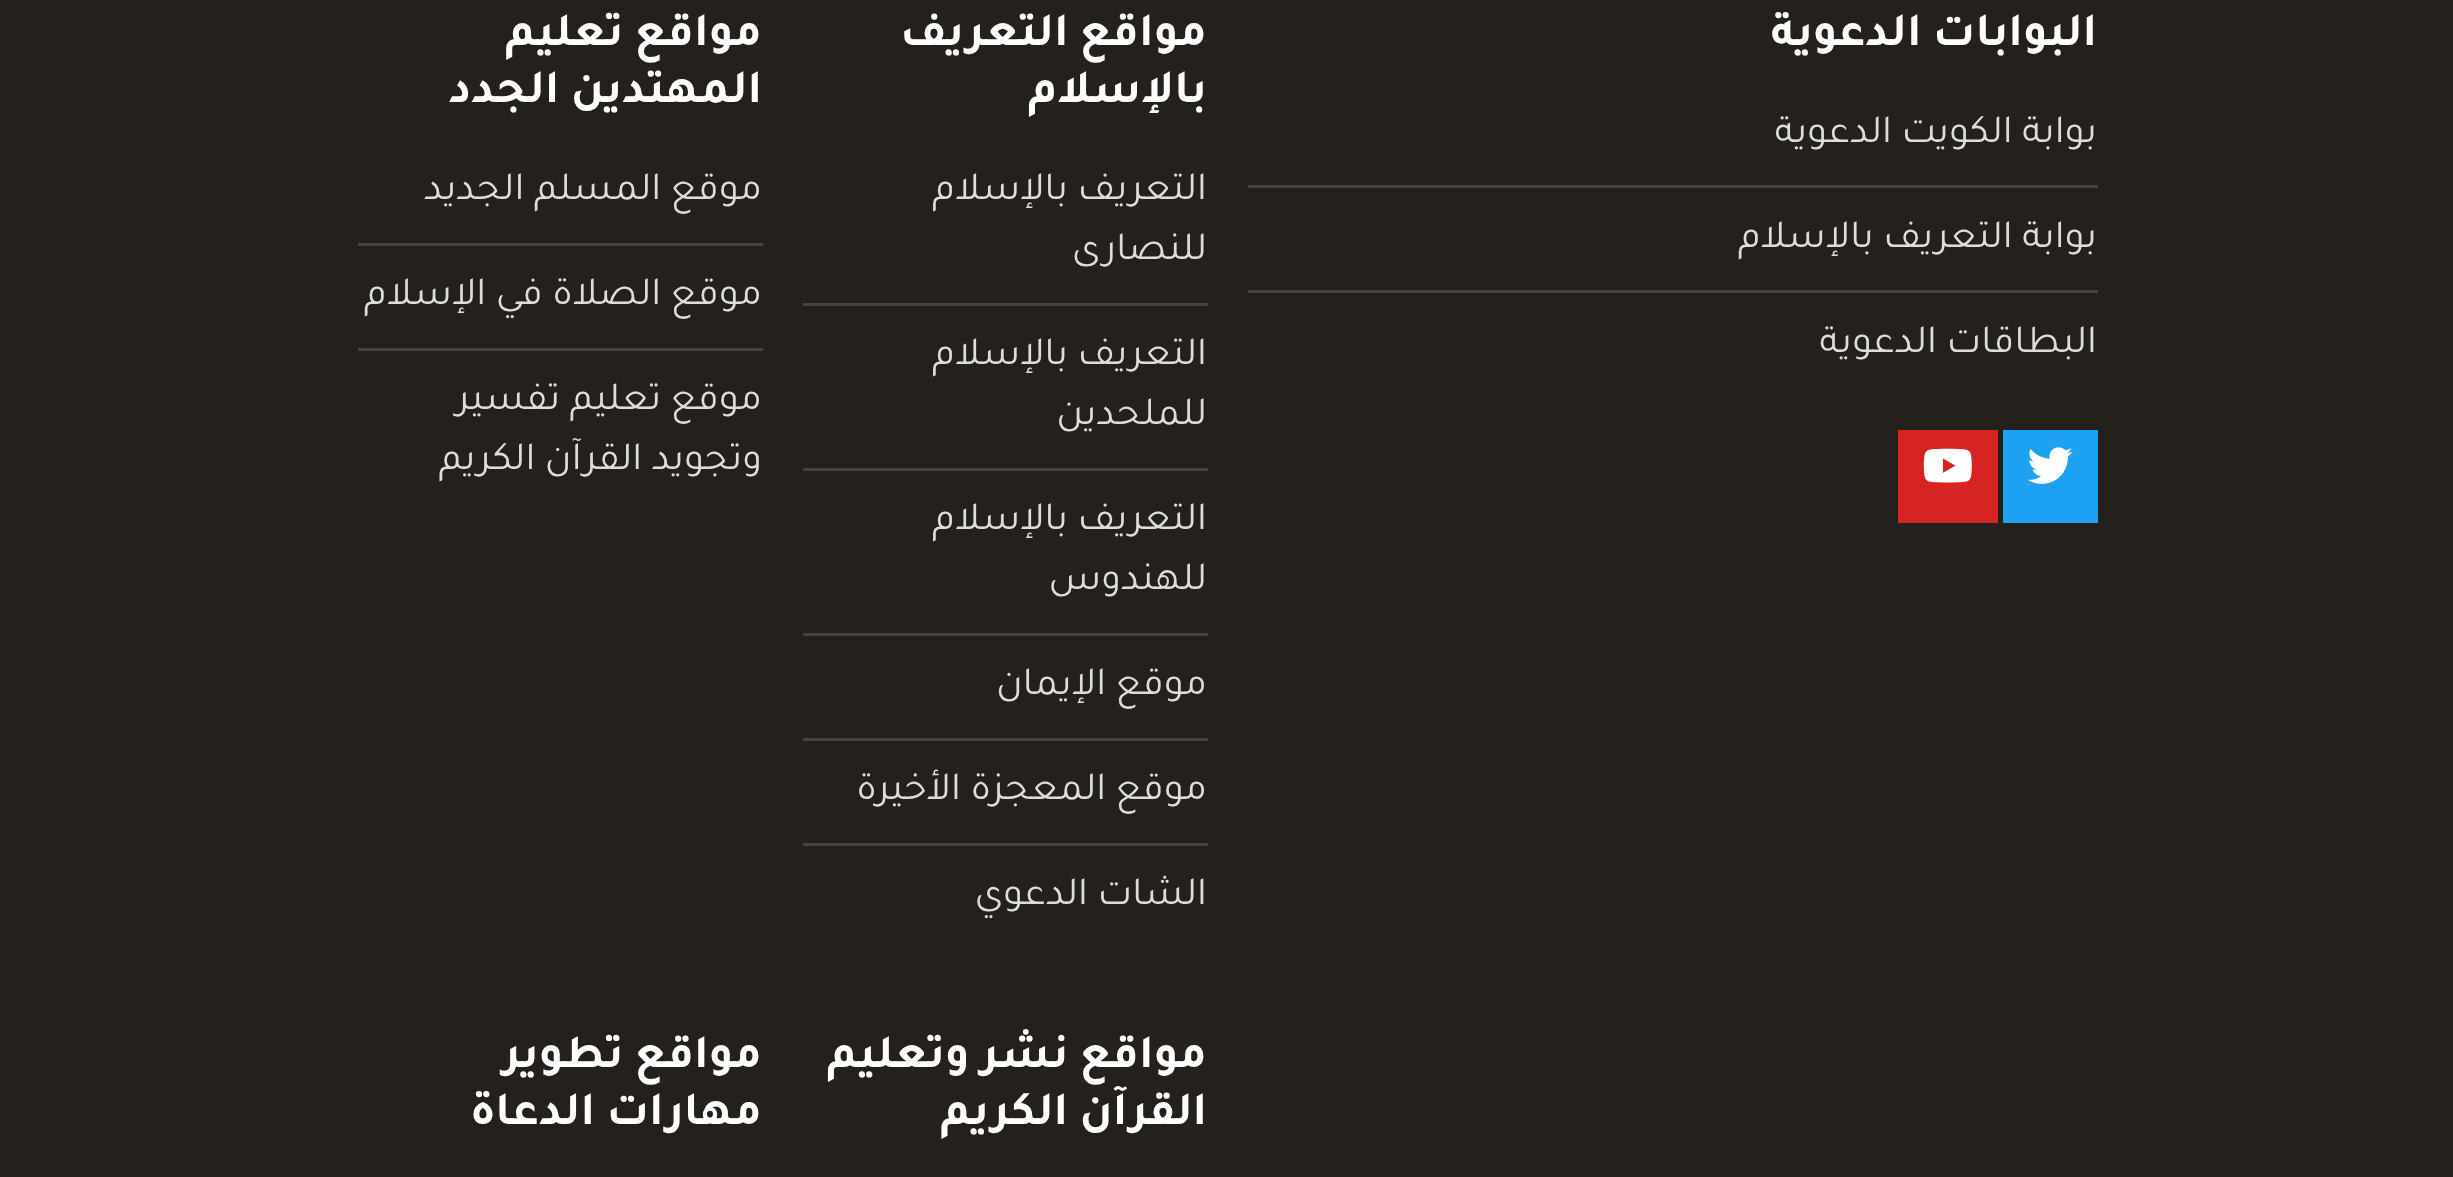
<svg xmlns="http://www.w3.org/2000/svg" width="2453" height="1177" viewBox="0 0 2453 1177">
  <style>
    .t1 { font: bold 47.5px Tajawal; direction: rtl; fill: #fff; }
    .t2 { font: 40px Tajawal; direction: rtl; fill: #ddd; }
  </style>
  <rect width="100%" height="100%" fill="#24211d"/>
  <text x="2097" y="45" class="t1">البوابات الدعوية</text>
  <rect x="1248" y="185" width="850" height="3" fill="#444"/>
  <text x="2097" y="142" class="t2">بوابة الكويت الدعوية</text>
  <rect x="1248" y="290" width="850" height="3" fill="#444"/>
  <text x="2097" y="247" class="t2">بوابة التعريف بالإسلام</text>
  <text x="2097" y="352" class="t2">البطاقات الدعوية</text>
  <rect x="2003" y="430" width="95" height="93" fill="#1da1f2"/>
  <image x="2027" y="447" width="46" height="37" href="images/1.png"/>
  <rect x="1898" y="430" width="100" height="93" fill="#d62422"/>
  <image x="1923" y="448" width="49" height="35" href="images/2.png"/>
  <text x="1207" y="45" class="t1">مواقع التعريف</text>
  <text x="1207" y="102" class="t1">بالإسلام</text>
  <rect x="803" y="303" width="405" height="3" fill="#444"/>
  <text x="1207" y="199" class="t2">التعريف بالإسلام</text>
  <text x="1207" y="259" class="t2">للنصارى</text>
  <rect x="803" y="468" width="405" height="3" fill="#444"/>
  <text x="1207" y="364" class="t2">التعريف بالإسلام</text>
  <text x="1207" y="424" class="t2">للملحدين</text>
  <rect x="803" y="633" width="405" height="3" fill="#444"/>
  <text x="1207" y="529" class="t2">التعريف بالإسلام</text>
  <text x="1207" y="589" class="t2">للهندوس</text>
  <rect x="803" y="738" width="405" height="3" fill="#444"/>
  <text x="1207" y="694" class="t2">موقع الإيمان</text>
  <rect x="803" y="843" width="405" height="3" fill="#444"/>
  <text x="1207" y="799" class="t2">موقع المعجزة الأخيرة</text>
  <text x="1207" y="904" class="t2">الشات الدعوي</text>
  <text x="762" y="45" class="t1">مواقع تعليم</text>
  <text x="762" y="102" class="t1">المهتدين الجدد</text>
  <rect x="358" y="243" width="405" height="3" fill="#444"/>
  <text x="762" y="199" class="t2">موقع المسلم الجديد</text>
  <rect x="358" y="348" width="405" height="3" fill="#444"/>
  <text x="762" y="304" class="t2">موقع الصلاة في الإسلام</text>
  <text x="762" y="409" class="t2">موقع تعليم تفسير</text>
  <text x="762" y="469" class="t2">وتجويد القرآن الكريم</text>
  <text x="1207" y="1067" class="t1">مواقع نشر وتعليم</text>
  <text x="1207" y="1124" class="t1">القرآن الكريم</text>
  <text x="762" y="1067" class="t1">مواقع تطوير</text>
  <text x="762" y="1124" class="t1">مهارات الدعاة</text>
</svg>
